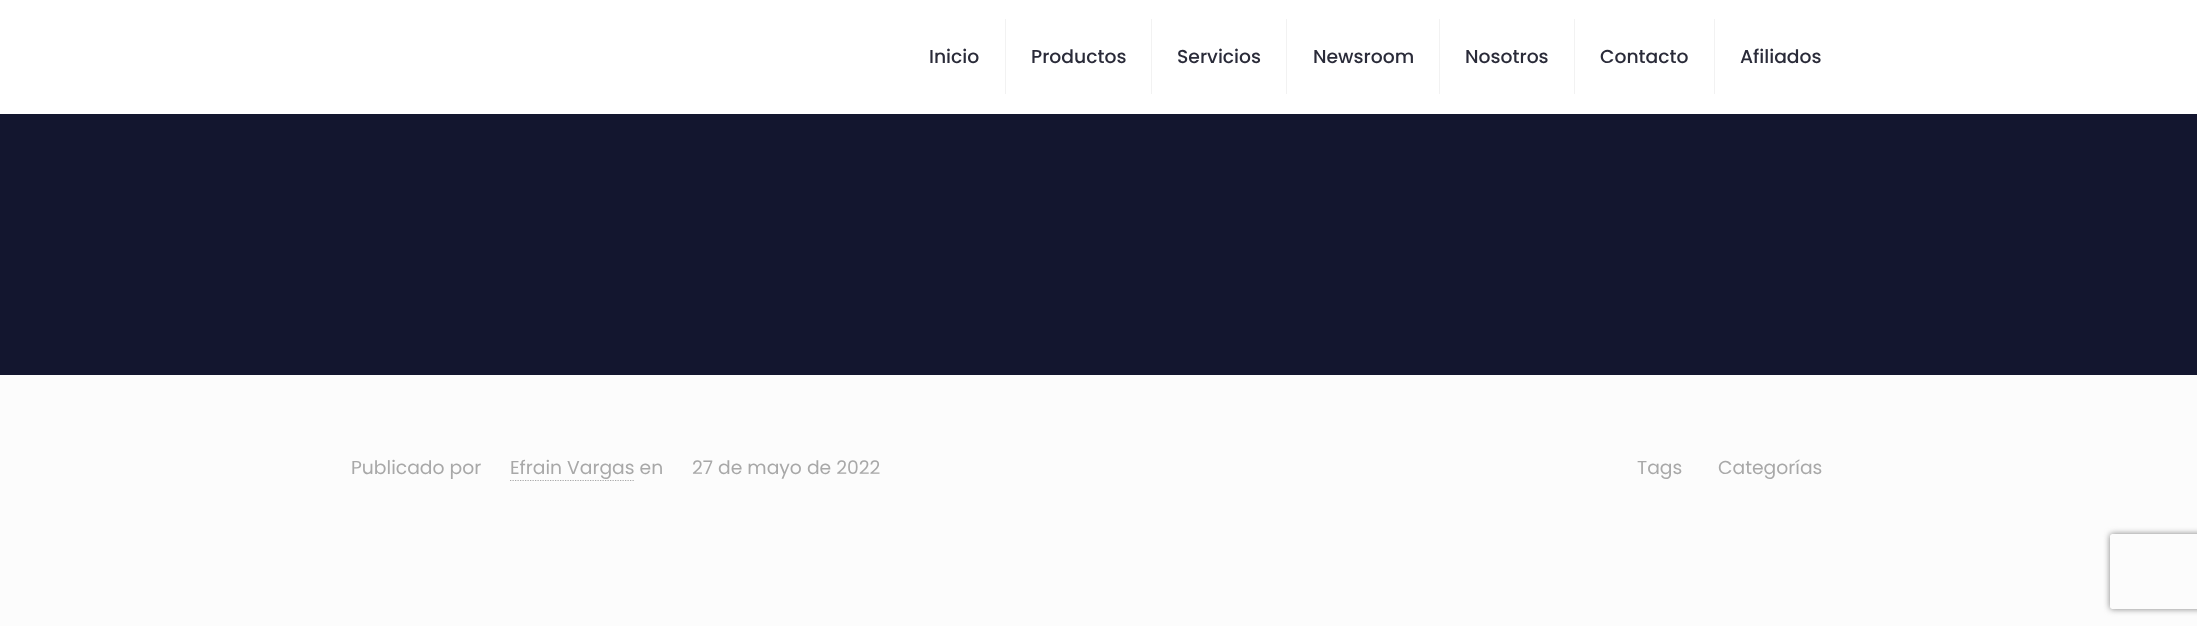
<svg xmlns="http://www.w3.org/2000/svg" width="2197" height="626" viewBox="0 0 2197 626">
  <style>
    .t1 { font: 500 18.75px Poppins; fill: #2a2b39; }
    .t2 { font: 18.75px Poppins; fill: #a8a8a8; }
  </style>
  <defs>
    <clipPath id="clip1"><path d="M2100 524H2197V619H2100ZM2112.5 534H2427.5C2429 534 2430 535 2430 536.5V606.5C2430 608 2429 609 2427.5 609H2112.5C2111 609 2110 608 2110 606.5V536.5C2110 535 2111 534 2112.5 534Z" clip-rule="evenodd"/></clipPath>
  </defs>
  <rect width="100%" height="100%" fill="#fcfcfc"/>
  <rect x="0" y="114" width="2197" height="261" fill="#13162f"/>
  <rect x="0" y="0" width="2197" height="114" fill="#fff"/>
  <rect x="1005" y="19" width="1" height="75" fill="#f2f2f2"/>
  <text x="929" y="63" class="t1">Inicio</text>
  <rect x="1151" y="19" width="1" height="75" fill="#f2f2f2"/>
  <text x="1031" y="63" class="t1">Productos</text>
  <rect x="1286" y="19" width="1" height="75" fill="#f2f2f2"/>
  <text x="1177" y="63" class="t1">Servicios</text>
  <rect x="1439" y="19" width="1" height="75" fill="#f2f2f2"/>
  <text x="1313" y="63" class="t1">Newsroom</text>
  <rect x="1574" y="19" width="1" height="75" fill="#f2f2f2"/>
  <text x="1465" y="63" class="t1">Nosotros</text>
  <rect x="1714" y="19" width="1" height="75" fill="#f2f2f2"/>
  <text x="1600" y="63" class="t1">Contacto</text>
  <text x="1740" y="63" class="t1">Afiliados</text>
  <text x="351" y="474" class="t2">Publicado por</text>
  <path d="M510 480.5H635" fill="none" stroke="#a8a8a8" stroke-width="1.2" stroke-dasharray="1.25 1.25"/>
  <text x="510" y="474" class="t2">Efrain Vargas en</text>
  <text x="692" y="474" class="t2">27 de mayo de 2022</text>
  <text x="1637" y="474" class="t2">Tags</text>
  <text x="1718" y="474" class="t2">Categorías</text>
  <g clip-path="url(#clip1)">
    <rect x="2110" y="534" width="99" height="75" rx="2.5" fill="#808080" filter="blur(3px)"/>
  </g>
</svg>
